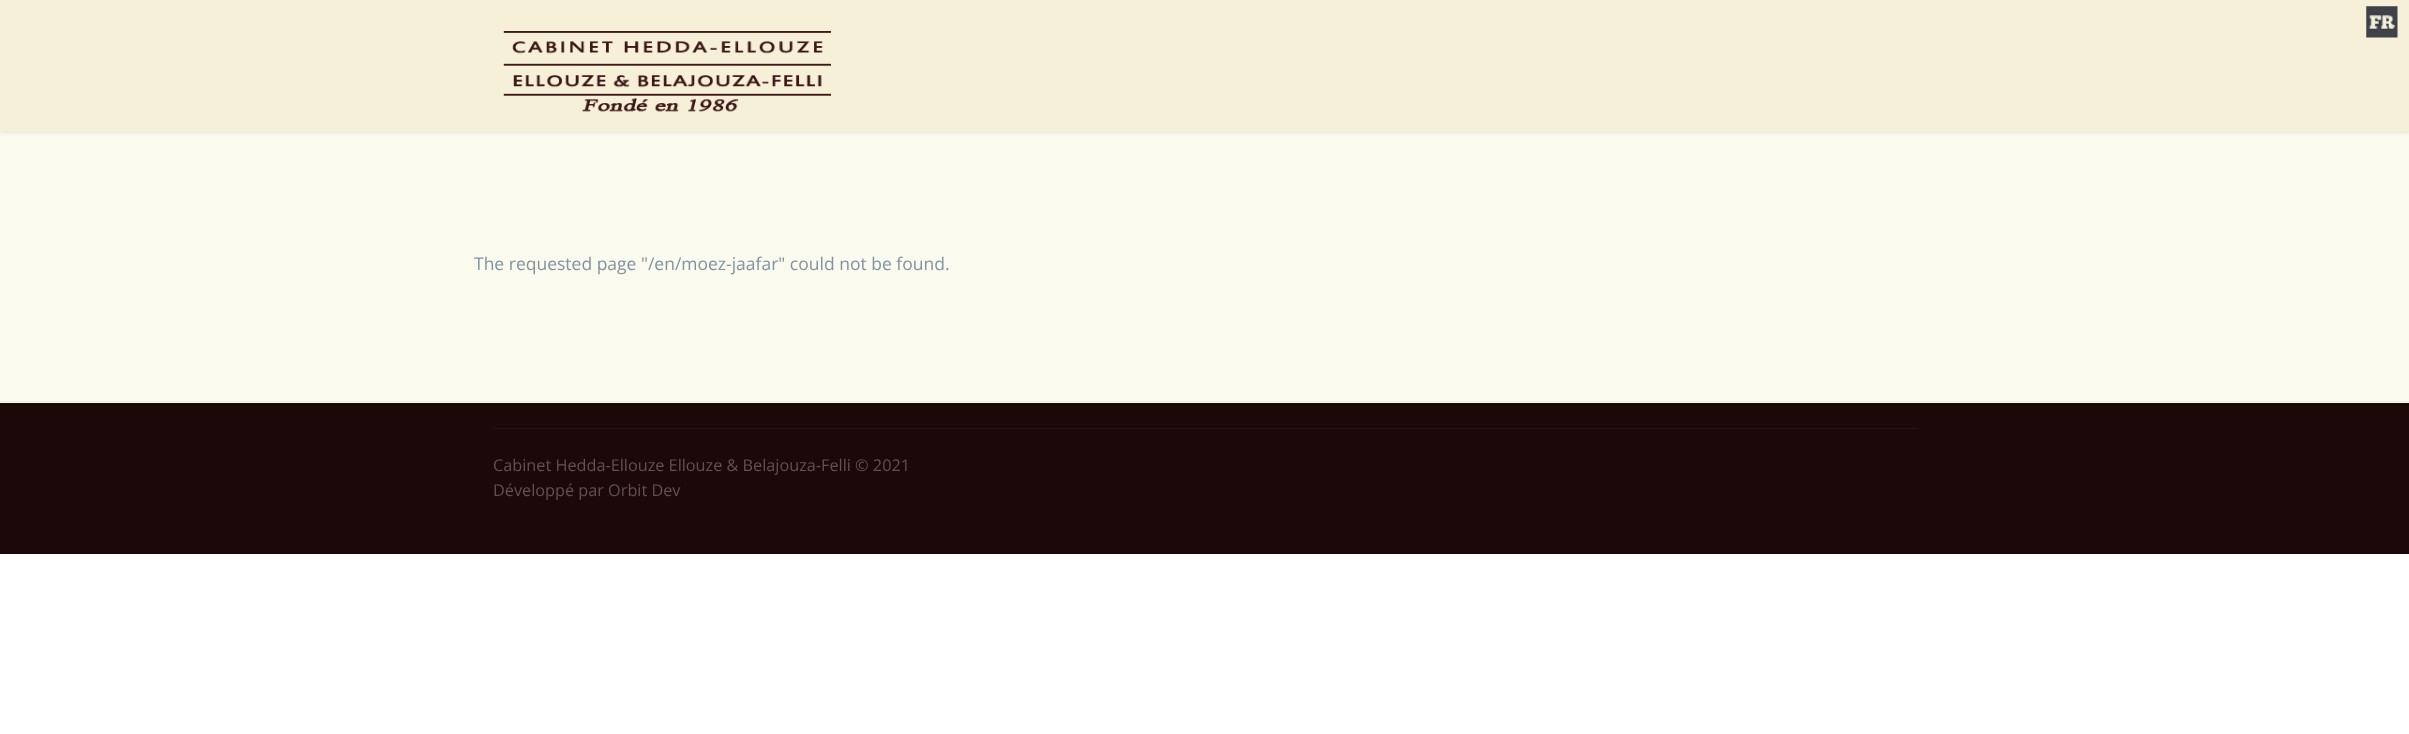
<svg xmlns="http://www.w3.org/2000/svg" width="2409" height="734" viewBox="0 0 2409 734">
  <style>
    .t1 { font: 17.5px Open Sans; fill: #8392a0; }
    .t2 { font: 16.25px Open Sans; fill: #605252; }
  </style>
  <rect width="100%" height="100%" fill="#fff"/>
  <rect x="0" y="131" width="2409" height="272" fill="#fafaee"/>
  <rect x="0" y="1" width="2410" height="132" fill="#00000014" filter="blur(2px)"/>
  <rect x="0" y="0" width="2409" height="131" fill="#f7f0d9"/>
  <image x="503" y="31" width="328" height="81" href="images/1.png"/>
  <image x="2366" y="6" width="32" height="32" href="images/2.png"/>
  <rect x="0" y="401" width="2409" height="1" fill="#ebebe0"/>
  <text x="474" y="270" class="t1">The requested page "/en/moez-jaafar" could not be found.</text>
  <rect x="0" y="403" width="2409" height="150" fill="#1c0808"/>
  <rect x="0" y="553" width="2409" height="1" fill="#1a0808"/>
  <rect x="493" y="428" width="1425" height="1" fill="#271414"/>
  <text x="493" y="471" class="t2">Cabinet Hedda-Ellouze Ellouze &amp; Belajouza-Felli © 2021</text>
  <text x="493" y="496" class="t2">Développé par Orbit Dev</text>
</svg>
